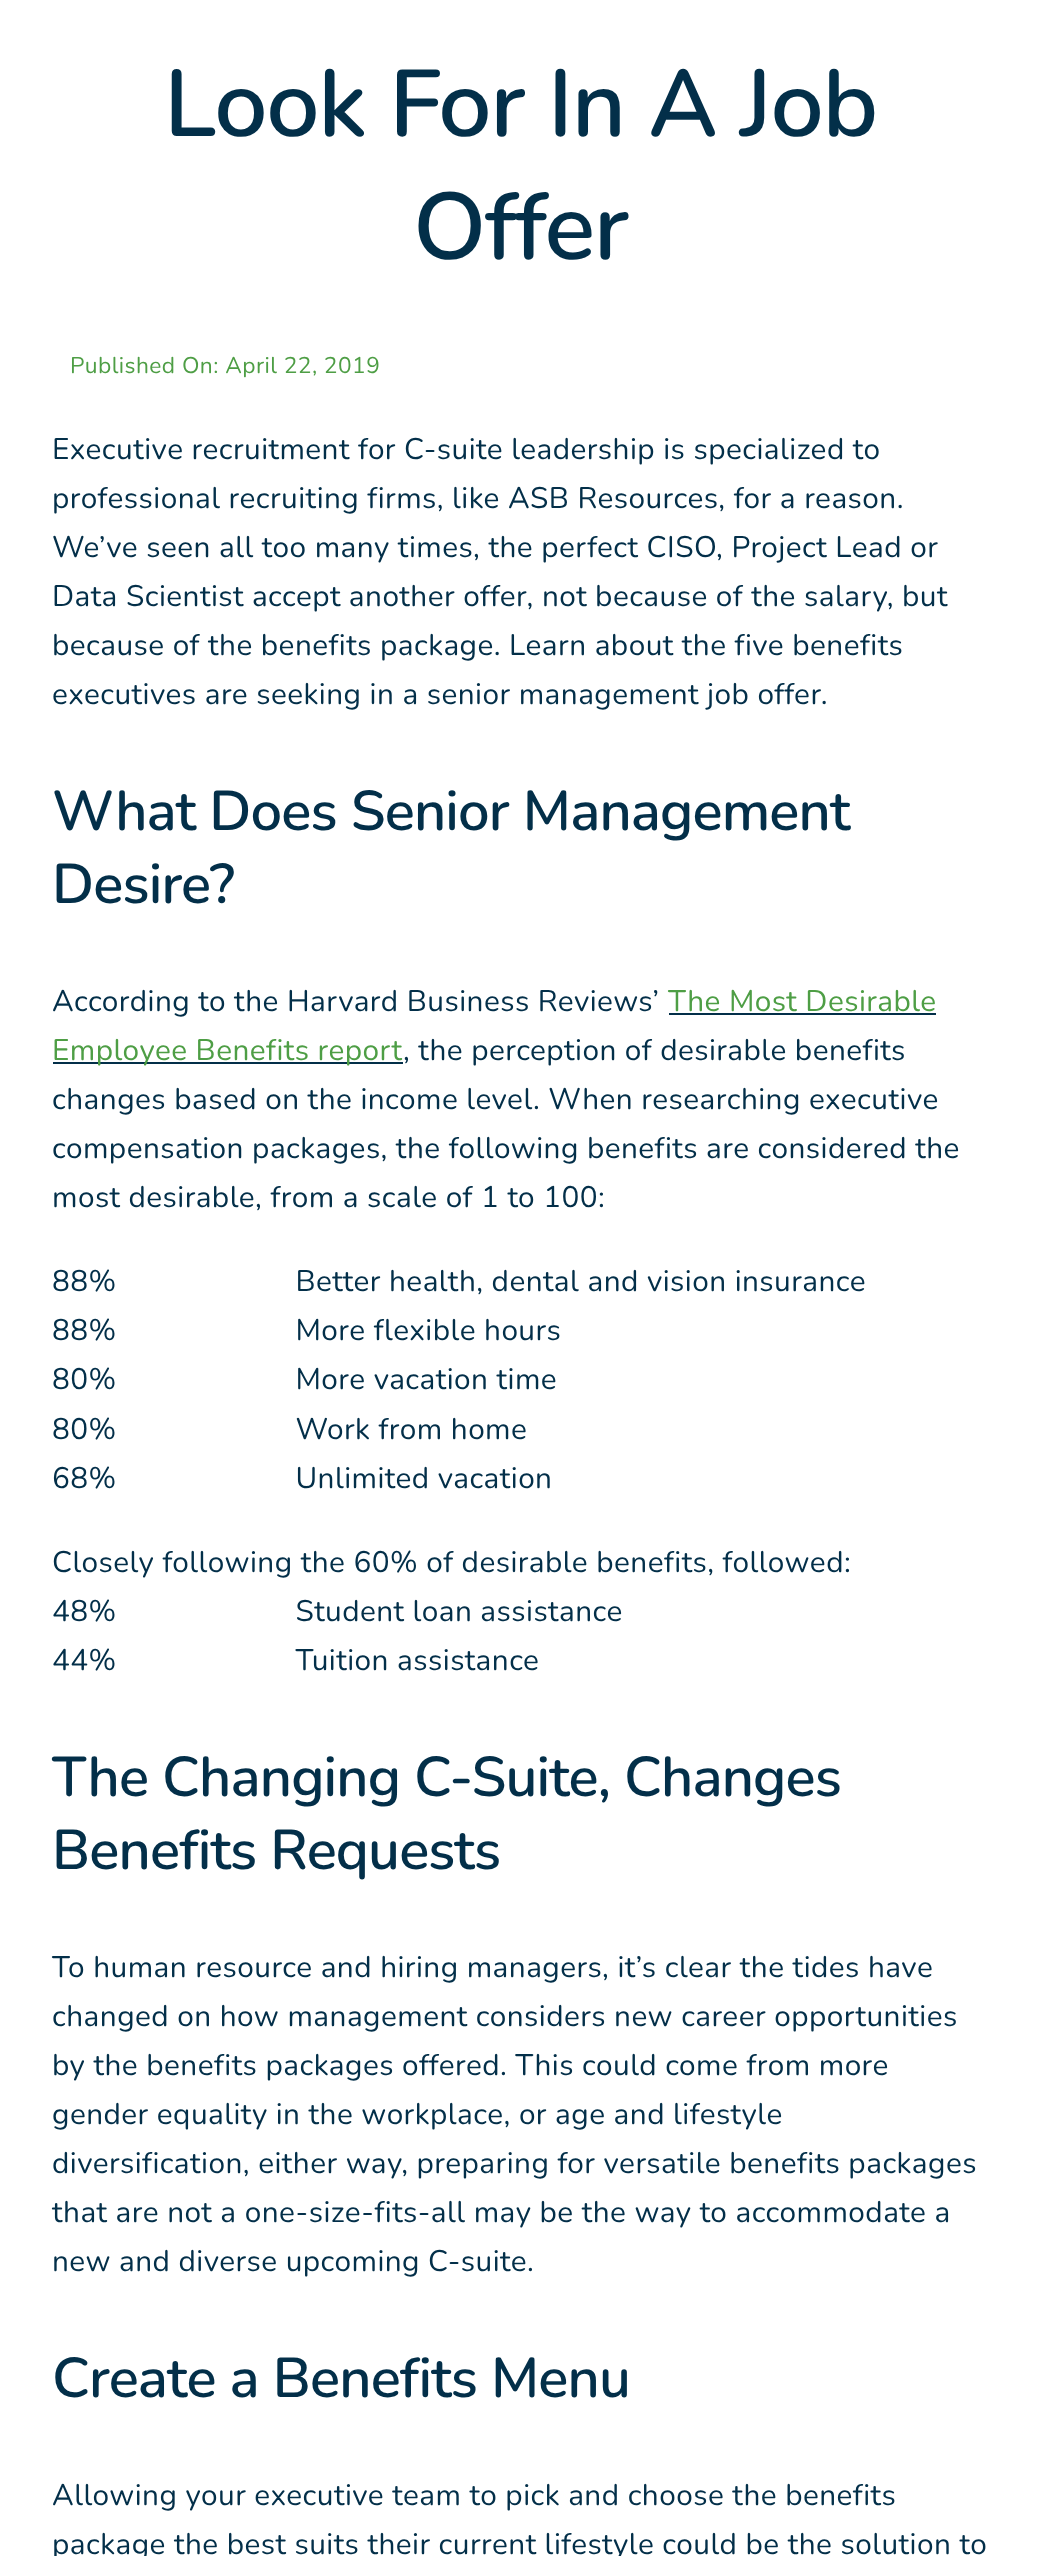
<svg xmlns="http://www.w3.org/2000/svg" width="1040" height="2556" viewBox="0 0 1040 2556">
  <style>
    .t1 { font: 600 94.5px Nunito; letter-spacing: -1.4px; fill: #032f49; }
    .t2 { font: 22.75px Nunito; letter-spacing: 0.45px; fill: #4e9e45; }
    .t3 { font: 29.75px Nunito; letter-spacing: 0.45px; fill: #032f49; }
    .t4 { font: 600 56px Nunito; letter-spacing: -0.85px; fill: #032f49; }
    .t5 { font: 29.75px Nunito; letter-spacing: 0.45px; fill: #4e9e45; }
  </style>
  <rect width="100%" height="100%" fill="#fff"/>
  <text x="164" y="136" class="t1">Look For In A Job</text>
  <text x="413" y="259" class="t1">Offer</text>
  <text x="70" y="373" class="t2">Published On: April 22, 2019</text>
  <text x="52" y="459" class="t3">Executive recruitment for C-suite leadership is specialized to</text>
  <text x="52" y="508" class="t3">professional recruiting firms, like ASB Resources, for a reason.</text>
  <text x="52" y="557" class="t3">We’ve seen all too many times, the perfect CISO, Project Lead or</text>
  <text x="52" y="606" class="t3">Data Scientist accept another offer, not because of the salary, but</text>
  <text x="52" y="655" class="t3">because of the benefits package. Learn about the five benefits</text>
  <text x="52" y="704" class="t3">executives are seeking in a senior management job offer.</text>
  <text x="52" y="830" class="t4">What Does Senior Management</text>
  <text x="52" y="903" class="t4">Desire?</text>
  <text x="52" y="1011" class="t3">According to the Harvard Business Reviews’</text>
  <text x="668" y="1011" class="t5">The Most Desirable</text>
  <rect x="669" y="1013" width="267" height="2" fill="#032f49"/>
  <rect x="53" y="1062" width="350" height="2" fill="#032f49"/>
  <text x="52" y="1060" class="t5">Employee Benefits report</text>
  <text x="403" y="1060" class="t3">, the perception of desirable benefits</text>
  <text x="52" y="1109" class="t3">changes based on the income level. When researching executive</text>
  <text x="52" y="1158" class="t3">compensation packages, the following benefits are considered the</text>
  <text x="52" y="1207" class="t3">most desirable, from a scale of 1 to 100:</text>
  <text x="52" y="1291" class="t3" xml:space="preserve">88%                      Better health, dental and vision insurance</text>
  <text x="52" y="1340" class="t3" xml:space="preserve">88%                      More flexible hours</text>
  <text x="52" y="1389" class="t3" xml:space="preserve">80%                      More vacation time</text>
  <text x="52" y="1439" class="t3" xml:space="preserve">80%                      Work from home</text>
  <text x="52" y="1488" class="t3" xml:space="preserve">68%                      Unlimited vacation</text>
  <text x="52" y="1572" class="t3">Closely following the 60% of desirable benefits, followed:</text>
  <text x="52" y="1621" class="t3" xml:space="preserve">48%                      Student loan assistance</text>
  <text x="52" y="1670" class="t3" xml:space="preserve">44%                      Tuition assistance</text>
  <text x="52" y="1796" class="t4">The Changing C-Suite, Changes</text>
  <text x="52" y="1869" class="t4">Benefits Requests</text>
  <text x="52" y="1977" class="t3">To human resource and hiring managers, it’s clear the tides have</text>
  <text x="52" y="2026" class="t3">changed on how management considers new career opportunities</text>
  <text x="52" y="2075" class="t3">by the benefits packages offered. This could come from more</text>
  <text x="52" y="2124" class="t3">gender equality in the workplace, or age and lifestyle</text>
  <text x="52" y="2173" class="t3">diversification, either way, preparing for versatile benefits packages</text>
  <text x="52" y="2222" class="t3">that are not a one-size-fits-all may be the way to accommodate a</text>
  <text x="52" y="2271" class="t3">new and diverse upcoming C-suite.</text>
  <text x="52" y="2397" class="t4">Create a Benefits Menu</text>
  <text x="52" y="2505" class="t3">Allowing your executive team to pick and choose the benefits</text>
  <text x="52" y="2554" class="t3">package the best suits their current lifestyle could be the solution to</text>
</svg>
